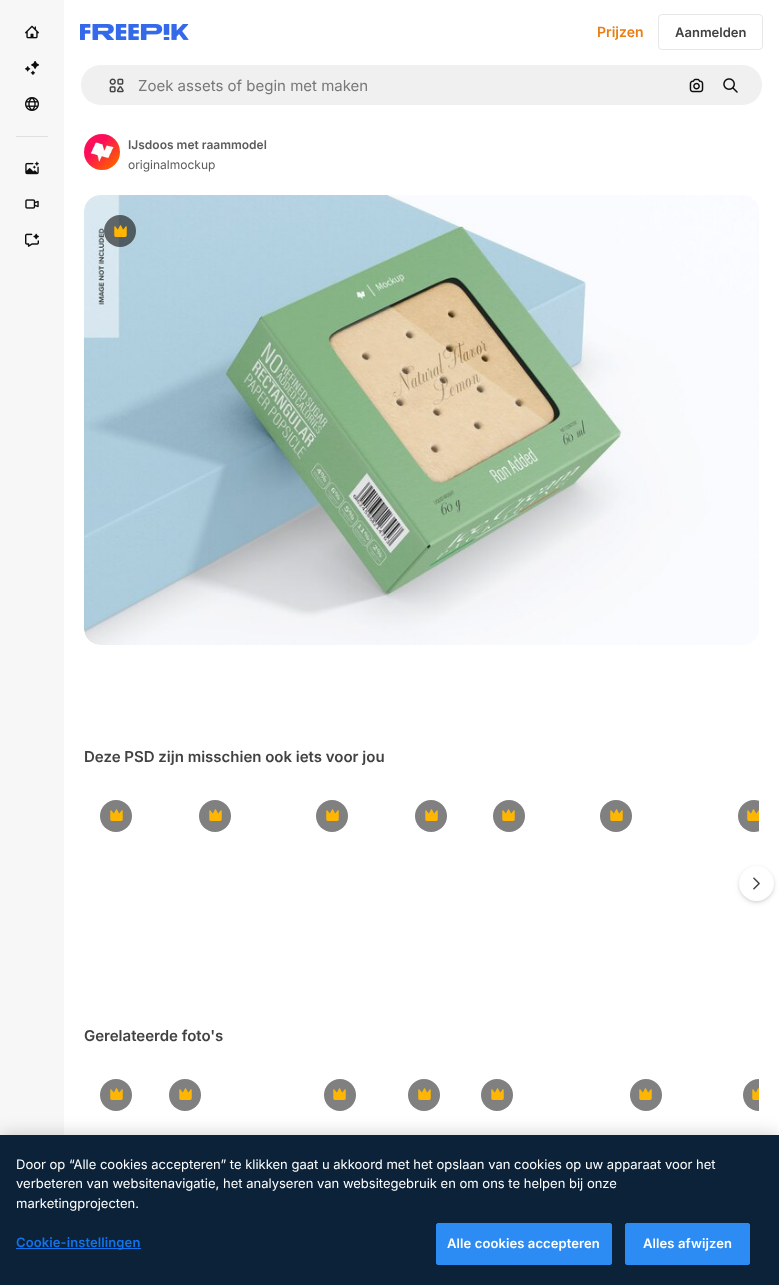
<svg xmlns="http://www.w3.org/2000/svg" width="779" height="1285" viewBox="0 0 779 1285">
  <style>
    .t1 { font: 600 14px Inter; fill: #ea7e11; }
    .t2 { font: 600 13px Inter; fill: #424242; }
    .t3 { font: 15px Inter; fill: #777; }
    .t4 { font: 600 12px Inter; fill: #5c5c5c; }
    .t5 { font: 12px Inter; fill: #5c5c5c; }
    .t6 { font: 600 15px Inter; fill: #424242; }
    .t7 { font: 13px Inter; fill: #fff; }
    .t8 { font: 600 13px Inter; letter-spacing: 0.1px; fill: #1273eb; }
    .t9 { font: 600 13px Inter; letter-spacing: 0.1px; fill: #fff; }
  </style>
  <defs>
    <clipPath id="clip1"><rect x="84" y="784" width="675" height="200"/></clipPath>
  </defs>
  <rect width="100%" height="100%" fill="#fff"/>
  <rect x="0" y="0" width="64" height="1135" fill="#f7f7f7"/>
  <image x="25" y="25" width="14" height="14" href="images/1.png"/>
  <image x="25" y="61" width="14" height="14" href="images/2.png"/>
  <image x="25" y="97" width="14" height="14" href="images/3.png"/>
  <rect x="16" y="136" width="32" height="1" fill="#e0e0e0"/>
  <image x="25" y="161" width="14" height="14" href="images/4.png"/>
  <image x="25" y="199" width="14" height="10" href="images/5.png"/>
  <image x="25" y="233" width="14" height="14" href="images/6.png"/>
  <image x="80" y="24" width="109" height="16" href="images/7.png"/>
  <text x="597" y="37" class="t1">Prijzen</text>
  <rect x="658.5" y="14.5" width="104" height="35" rx="3.5" fill="none" stroke="#e7e7e7"/>
  <text x="675" y="37" class="t2">Aanmelden</text>
  <rect x="80.5" y="64.5" width="682" height="41" rx="20.5" fill="#f0f0f0" stroke="#fff"/>
  <image x="109" y="78" width="15" height="15" href="images/8.png"/>
  <text x="138" y="91" class="t3">Zoek assets of begin met maken</text>
  <image x="689" y="78" width="15" height="15" href="images/9.png"/>
  <image x="723" y="78" width="15" height="15" href="images/10.png"/>
  <image x="84" y="134" width="36" height="36" href="images/11.png"/>
  <text x="128" y="149" class="t4">IJsdoos met raammodel</text>
  <text x="128" y="169" class="t5">originalmockup</text>
  <image x="84" y="195" width="675" height="450" href="images/12.png"/>
  <circle cx="120" cy="231" r="16" fill="#0d0d0d99"/>
  <image x="114" y="225" width="13" height="12" href="images/13.png"/>
  <text x="84" y="762" class="t6">Deze PSD zijn misschien ook iets voor jou</text>
  <circle cx="116" cy="816" r="16" fill="#808080"/>
  <image x="110" y="809" width="13" height="12" href="images/14.png"/>
  <circle cx="215" cy="816" r="16" fill="#808080"/>
  <image x="209" y="809" width="13" height="12" href="images/14.png"/>
  <circle cx="332" cy="816" r="16" fill="#808080"/>
  <image x="326" y="809" width="13" height="12" href="images/14.png"/>
  <circle cx="431" cy="816" r="16" fill="#808080"/>
  <image x="425" y="809" width="13" height="12" href="images/14.png"/>
  <circle cx="509" cy="816" r="16" fill="#808080"/>
  <image x="502" y="809" width="13" height="12" href="images/14.png"/>
  <circle cx="616" cy="816" r="16" fill="#808080"/>
  <image x="610" y="809" width="13" height="12" href="images/14.png"/>
  <g clip-path="url(#clip1)">
    <circle cx="754" cy="816" r="16" fill="#808080"/>
  </g>
  <image x="747" y="809" width="12" height="12" href="images/15.png"/>
  <rect x="739" y="868" width="35" height="35" rx="17.5" fill="#37495726" filter="blur(2.5px)"/>
  <rect x="739" y="867" width="35" height="35" rx="17.5" fill="#3749571a" filter="blur(1px)"/>
  <circle cx="756.5" cy="883.5" r="17.5" fill="#fff"/>
  <image x="753" y="877" width="7" height="13" href="images/16.png"/>
  <text x="84" y="1041" class="t6">Gerelateerde foto's</text>
  <circle cx="116" cy="1095" r="16" fill="#808080"/>
  <image x="110" y="1088" width="13" height="12" href="images/14.png"/>
  <circle cx="185" cy="1095" r="16" fill="#808080"/>
  <image x="179" y="1088" width="13" height="12" href="images/14.png"/>
  <circle cx="340" cy="1095" r="16" fill="#808080"/>
  <image x="333" y="1088" width="13" height="12" href="images/14.png"/>
  <circle cx="424" cy="1095" r="16" fill="#808080"/>
  <image x="418" y="1088" width="13" height="12" href="images/14.png"/>
  <circle cx="497" cy="1095" r="16" fill="#808080"/>
  <image x="491" y="1088" width="13" height="12" href="images/14.png"/>
  <circle cx="646" cy="1095" r="16" fill="#808080"/>
  <image x="639" y="1088" width="13" height="12" href="images/14.png"/>
  <path d="M759 1079V1111C750 1111 743 1104 743 1095C743 1086 750 1079 759 1079Z" fill="#808080"/>
  <image x="752" y="1088" width="7" height="12" href="images/17.png"/>
  <rect x="0" y="1135" width="779" height="150" fill="#00000033" filter="blur(9px)"/>
  <rect x="0" y="1135" width="779" height="150" fill="#0b2239"/>
  <text x="16" y="1169" class="t7">Door op “Alle cookies accepteren” te klikken gaat u akkoord met het opslaan van cookies op uw apparaat voor het</text>
  <text x="16" y="1188" class="t7">verbeteren van websitenavigatie, het analyseren van websitegebruik en om ons te helpen bij onze</text>
  <text x="16" y="1208" class="t7">marketingprojecten.</text>
  <rect x="16" y="1248" width="125" height="1" fill="#1273eb"/>
  <text x="16" y="1247" class="t8">Cookie-instellingen</text>
  <rect x="436.5" y="1223.5" width="175" height="41" rx="1.5" fill="#2c8cf4" stroke="#2c8cf4"/>
  <text x="447" y="1248" class="t9">Alle cookies accepteren</text>
  <rect x="625.5" y="1223.5" width="124" height="41" rx="1.5" fill="#2c8cf4" stroke="#2c8cf4"/>
  <text x="643" y="1248" class="t9">Alles afwijzen</text>
</svg>
